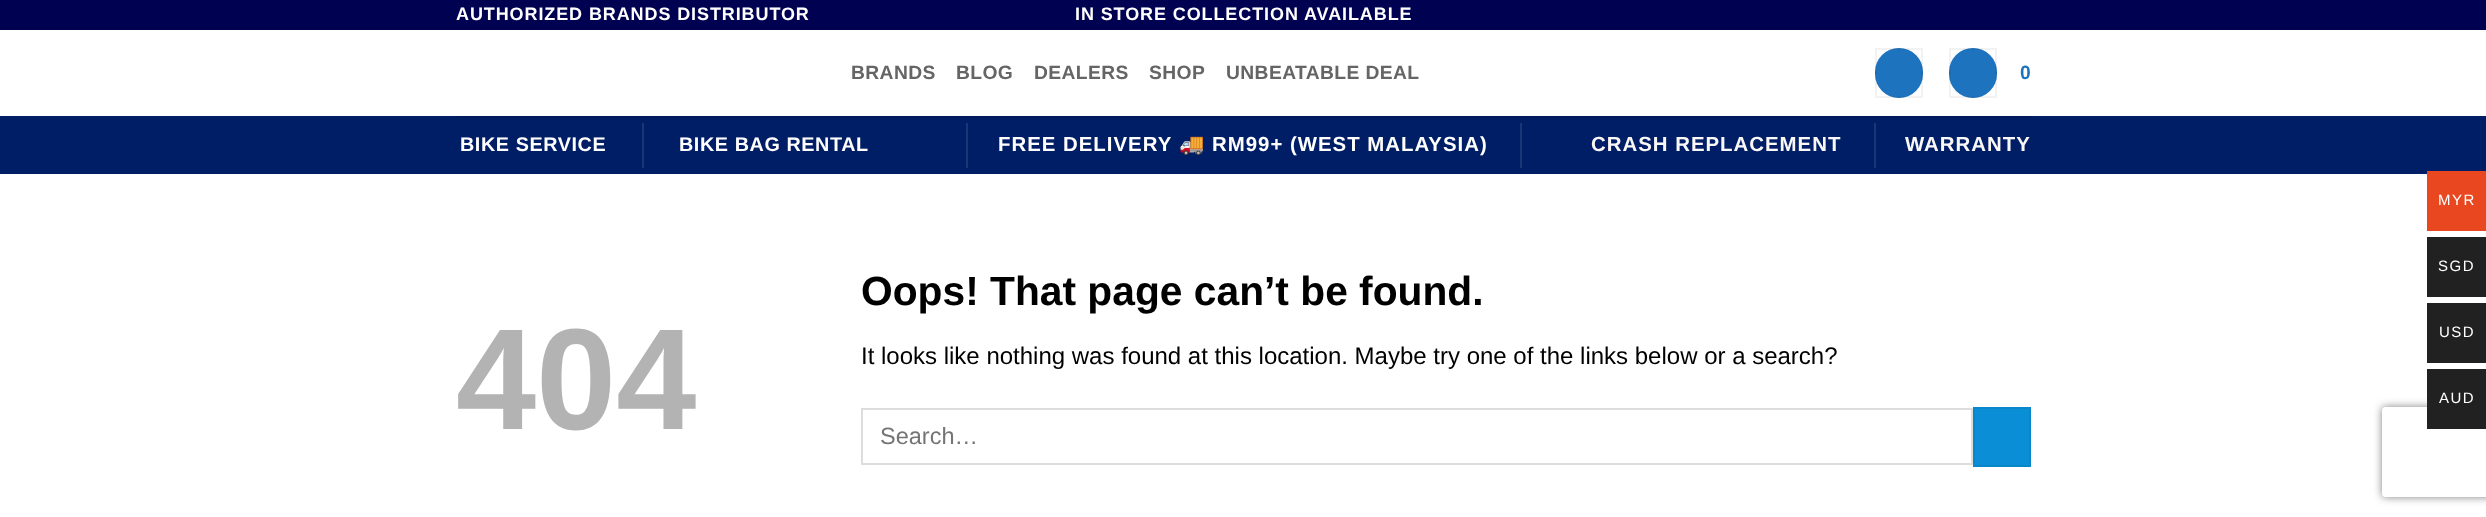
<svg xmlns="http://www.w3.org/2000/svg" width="2486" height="517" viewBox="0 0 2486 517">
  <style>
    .t1 { font: bold 18px Liberation Sans; letter-spacing: 0.9px; fill: #fff; }
    .t2 { font: bold 19.25px Liberation Sans; letter-spacing: 0.4px; fill: #656565; }
    .t3 { font: bold 19.25px Liberation Sans; letter-spacing: 0.4px; fill: #1e73be; }
    .t4 { font: bold 19.75px Liberation Sans; letter-spacing: 0.6px; fill: #fff; }
    .t5 { font: bold 20.4px Liberation Sans; letter-spacing: 1px; fill: #fff; }
    .t6 { font: bold 20.4px Noto Color Emoji; letter-spacing: 1px; fill: #fff; }
    .t7 { font: bold 20.4px Liberation Sans; letter-spacing: 1px; fill: #faf7f7; }
    .t8 { font: bold 144px Liberation Sans; fill: #b3b3b3; }
    .t9 { font: bold 40.75px Liberation Sans; fill: #000; }
    .t10 { font: 24px Liberation Sans; fill: #000; }
    .t11 { font: 23.5px Liberation Sans; fill: #757575; }
    .t12 { font: 15px Liberation Sans; letter-spacing: 1.5px; fill: #fff; }
  </style>
  <defs>
    <clipPath id="clip1"><path d="M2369 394H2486V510H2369ZM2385 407H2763C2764.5 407 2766 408.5 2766 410V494C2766 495.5 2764.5 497 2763 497H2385C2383.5 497 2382 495.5 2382 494V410C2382 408.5 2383.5 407 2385 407Z" clip-rule="evenodd"/></clipPath>
  </defs>
  <rect width="100%" height="100%" fill="#fff"/>
  <rect x="0" y="0" width="2486" height="30" fill="#000151"/>
  <text x="456" y="20" class="t1">AUTHORIZED BRANDS DISTRIBUTOR</text>
  <text x="1075" y="20" class="t1">IN STORE COLLECTION AVAILABLE</text>
  <text x="851" y="79" class="t2">BRANDS</text>
  <text x="956" y="79" class="t2">BLOG</text>
  <text x="1034" y="79" class="t2">DEALERS</text>
  <text x="1149" y="79" class="t2">SHOP</text>
  <text x="1226" y="79" class="t2">UNBEATABLE DEAL</text>
  <rect x="1875" y="48" width="48" height="50" rx="24" fill="#1e73be"/>
  <rect x="1876" y="49" width="46" height="48" fill="none" stroke="#0000000d" stroke-width="2"/>
  <rect x="1949" y="48" width="48" height="50" rx="24" fill="#1e73be"/>
  <rect x="1950" y="49" width="46" height="48" fill="none" stroke="#0000000d" stroke-width="2"/>
  <text x="2020" y="79" class="t3">0</text>
  <rect x="0" y="116" width="2486" height="58" fill="#001e66"/>
  <rect x="456" y="116" width="1575" height="2" fill="#001b5c"/>
  <text x="460" y="151" class="t4">BIKE SERVICE</text>
  <rect x="642" y="123" width="2" height="45" fill="#1a3575"/>
  <text x="679" y="151" class="t4">BIKE BAG RENTAL</text>
  <rect x="966" y="123" width="2" height="45" fill="#1a3575"/>
  <text x="998" y="151" class="t5">FREE DELIVERY</text>
  <text x="1179" y="151" class="t6">🚚</text>
  <text x="1212" y="151" class="t5">RM99+ (WEST MALAYSIA)</text>
  <rect x="1520" y="123" width="2" height="45" fill="#1a3575"/>
  <text x="1591" y="151" class="t7">CRASH REPLACEMENT</text>
  <rect x="1874" y="123" width="2" height="45" fill="#1a3575"/>
  <text x="1905" y="151" class="t7">WARRANTY</text>
  <text x="456" y="429" class="t8">404</text>
  <text x="861" y="305" class="t9">Oops! That page can’t be found.</text>
  <text x="861" y="364" class="t10">It looks like nothing was found at this location. Maybe try one of the links below or a search?</text>
  <rect x="862" y="409" width="1110" height="55" fill="none" stroke="#ddd" stroke-width="2"/>
  <text x="880" y="444" class="t11">Search…</text>
  <rect x="1974" y="408" width="56" height="58" fill="#0a8ed6" stroke="#0a87cb" stroke-width="2"/>
  <rect x="2427" y="171" width="59" height="60" fill="#e84720"/>
  <text x="2438" y="205" class="t12">MYR</text>
  <rect x="2427" y="237" width="59" height="60" fill="#212121"/>
  <text x="2438" y="271" class="t12">SGD</text>
  <rect x="2427" y="303" width="59" height="60" fill="#212121"/>
  <text x="2439" y="337" class="t12">USD</text>
  <g clip-path="url(#clip1)">
    <rect x="2382" y="407" width="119" height="90" rx="3" fill="#808080" filter="blur(4px)"/>
  </g>
  <rect x="2427" y="369" width="59" height="60" fill="#212121"/>
  <text x="2439" y="403" class="t12">AUD</text>
</svg>
